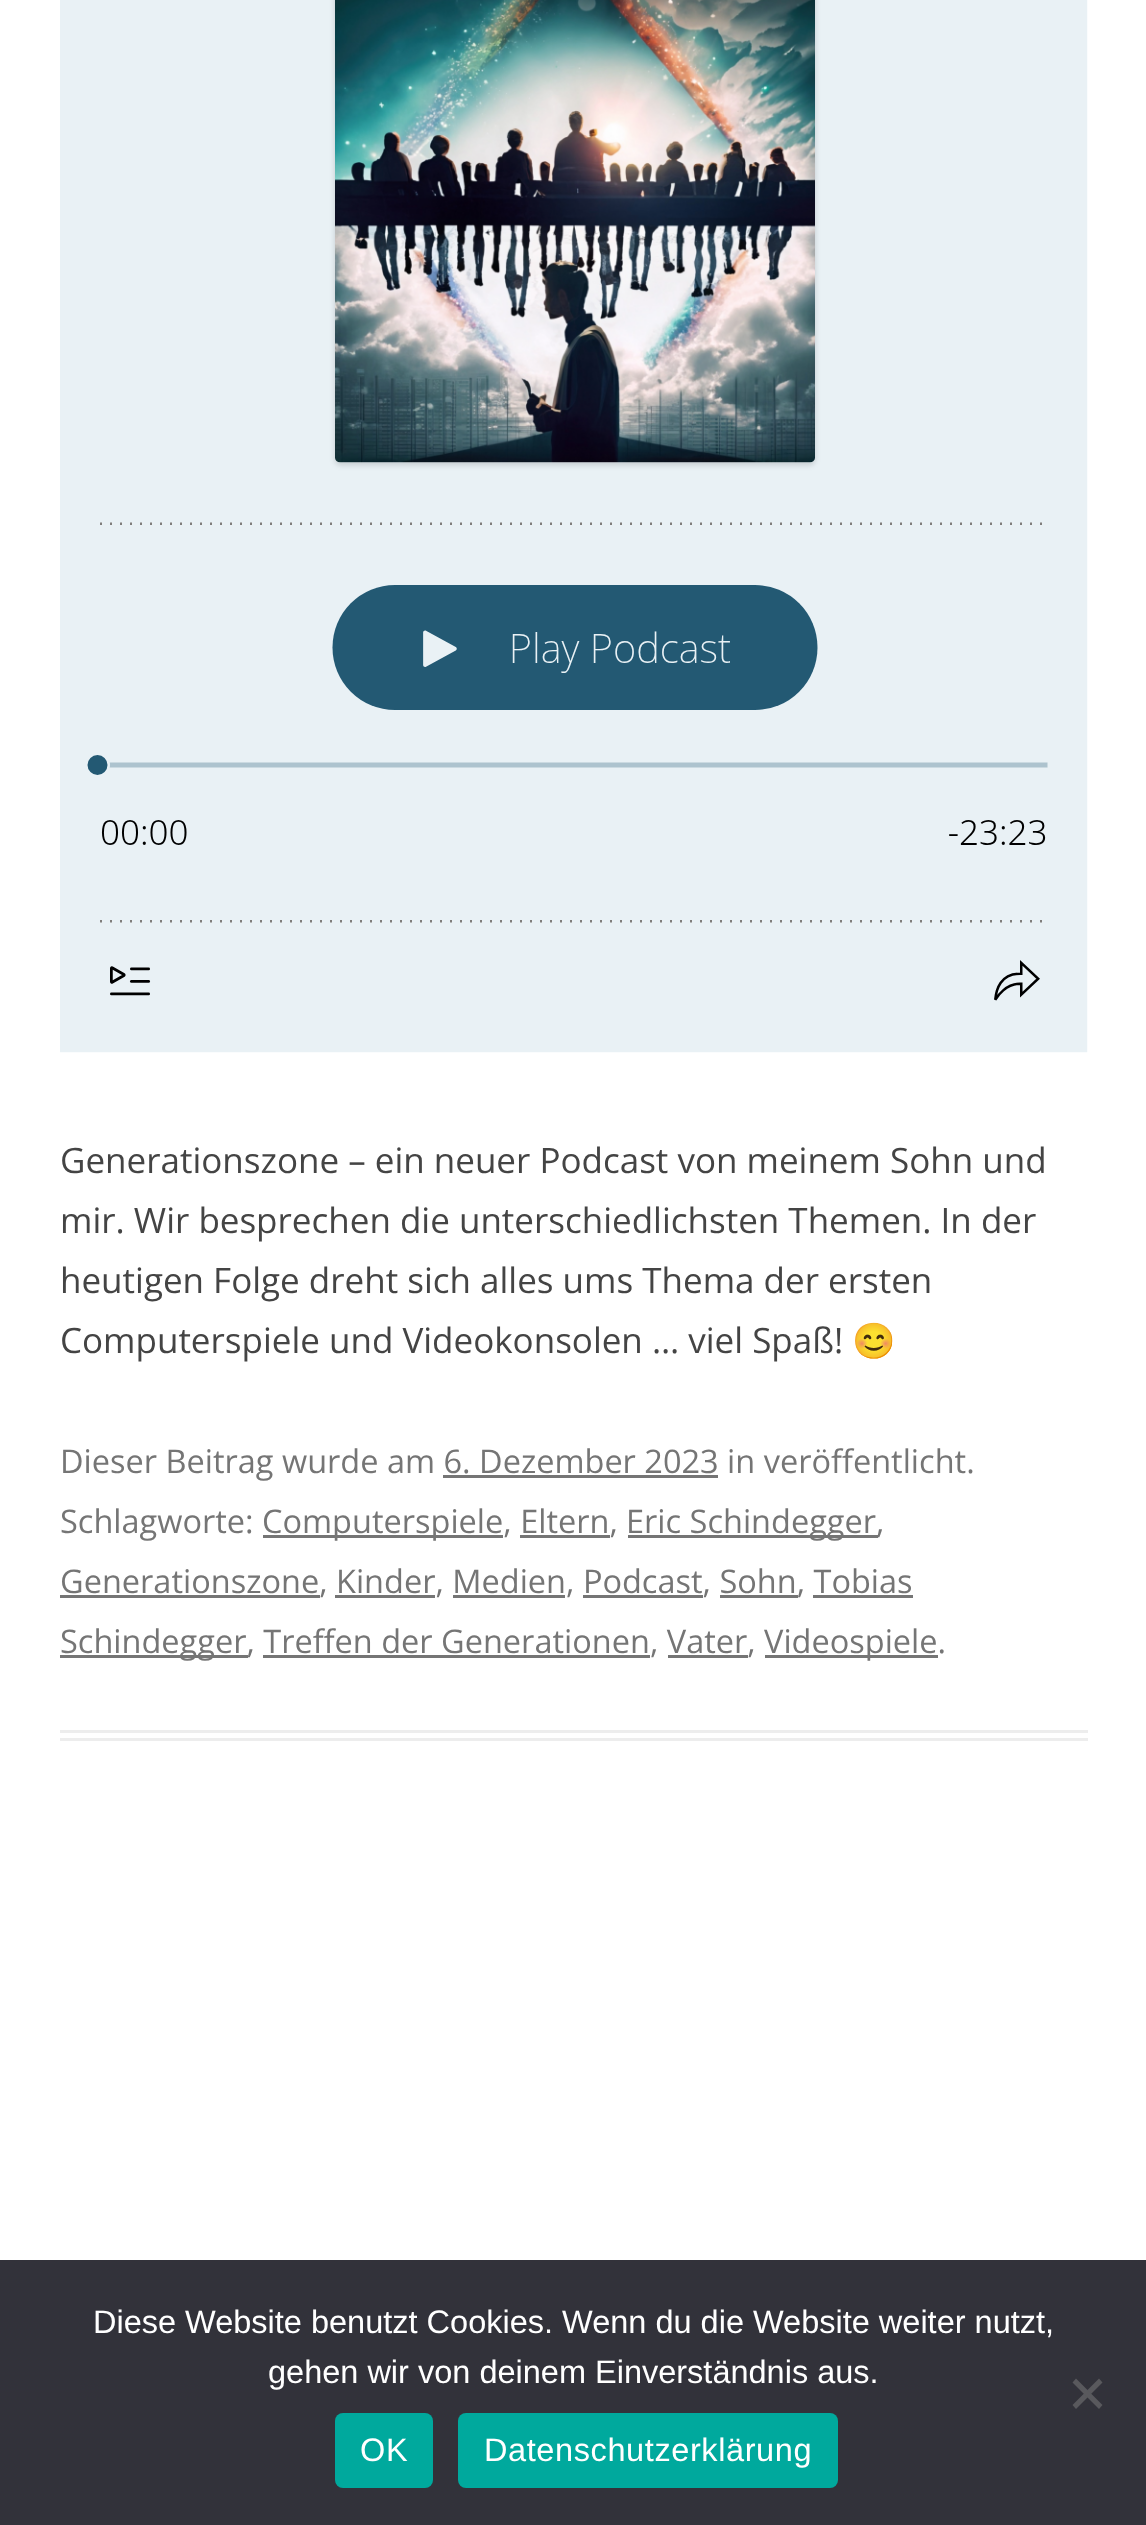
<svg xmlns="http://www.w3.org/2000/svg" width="1146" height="2525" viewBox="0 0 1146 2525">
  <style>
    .t1 { font: 35px Open Sans; fill: #444; }
    .t2 { font: 35px Noto Color Emoji; fill: #444; }
    .t3 { font: 32.5px Open Sans; fill: #757575; }
    .t4 { font: 32.5px Liberation Sans; fill: #fff; }
    .t5 { font: 32.5px Liberation Sans; letter-spacing: 0.6px; fill: #fff; }
  </style>
  <rect width="100%" height="100%" fill="#fff"/>
  <rect x="60" y="1730" width="1028" height="3" fill="#ededed"/>
  <rect x="60" y="1738" width="1028" height="3" fill="#ededed"/>
  <image x="60" y="0" width="1028" height="1053" href="images/1.png"/>
  <text x="60" y="1173" class="t1">Generationszone – ein neuer Podcast von meinem Sohn und</text>
  <text x="60" y="1233" class="t1">mir. Wir besprechen die unterschiedlichsten Themen. In der</text>
  <text x="60" y="1293" class="t1">heutigen Folge dreht sich alles ums Thema der ersten</text>
  <text x="60" y="1353" class="t1">Computerspiele und Videokonsolen … viel Spaß!</text>
  <text x="852" y="1353" class="t2">😊</text>
  <text x="60" y="1473" class="t3">Dieser Beitrag wurde am 6. Dezember 2023 in veröffentlicht.</text>
  <rect x="443" y="1475" width="275" height="3" fill="#757575"/>
  <text x="60" y="1533" class="t3">Schlagworte:</text>
  <rect x="263" y="1535" width="240" height="3" fill="#757575"/>
  <text x="262" y="1533" class="t3">Computerspiele, Eltern,</text>
  <rect x="628" y="1535" width="250" height="3" fill="#757575"/>
  <text x="626" y="1533" class="t3">Eric Schindegger,</text>
  <rect x="520" y="1535" width="90" height="3" fill="#757575"/>
  <rect x="60" y="1595" width="260" height="3" fill="#757575"/>
  <text x="60" y="1593" class="t3">Generationszone, Kinder, Medien, Podcast, Sohn, Tobias</text>
  <rect x="335" y="1595" width="100" height="3" fill="#757575"/>
  <rect x="453" y="1595" width="112" height="3" fill="#757575"/>
  <rect x="583" y="1595" width="120" height="3" fill="#757575"/>
  <rect x="720" y="1595" width="78" height="3" fill="#757575"/>
  <rect x="60" y="1655" width="188" height="3" fill="#757575"/>
  <text x="60" y="1653" class="t3">Schindegger, Treffen der Generationen, Vater,</text>
  <rect x="813" y="1595" width="100" height="3" fill="#757575"/>
  <rect x="765" y="1655" width="173" height="3" fill="#757575"/>
  <text x="764" y="1653" class="t3">Videospiele.</text>
  <rect x="263" y="1655" width="387" height="3" fill="#757575"/>
  <rect x="668" y="1655" width="80" height="3" fill="#757575"/>
  <rect x="0" y="2260" width="1146" height="265" fill="#32323a"/>
  <text x="93" y="2333" class="t4">Diese Website benutzt Cookies. Wenn du die Website weiter nutzt,</text>
  <text x="268" y="2383" class="t4">gehen wir von deinem Einverständnis aus.</text>
  <path d="M1099 2378.5L1102.5 2382.5L1076 2409L1072.5 2405Z" fill="#59595d"/>
  <path d="M1072.5 2382.5L1076 2378.5L1102.5 2405L1099 2409Z" fill="#59595d"/>
  <rect x="335" y="2413" width="98" height="75" rx="8" fill="#00a99d"/>
  <text x="360" y="2461" class="t5">OK</text>
  <rect x="458" y="2413" width="380" height="75" rx="8" fill="#00a99d"/>
  <text x="484" y="2461" class="t5">Datenschutzerklärung</text>
</svg>
